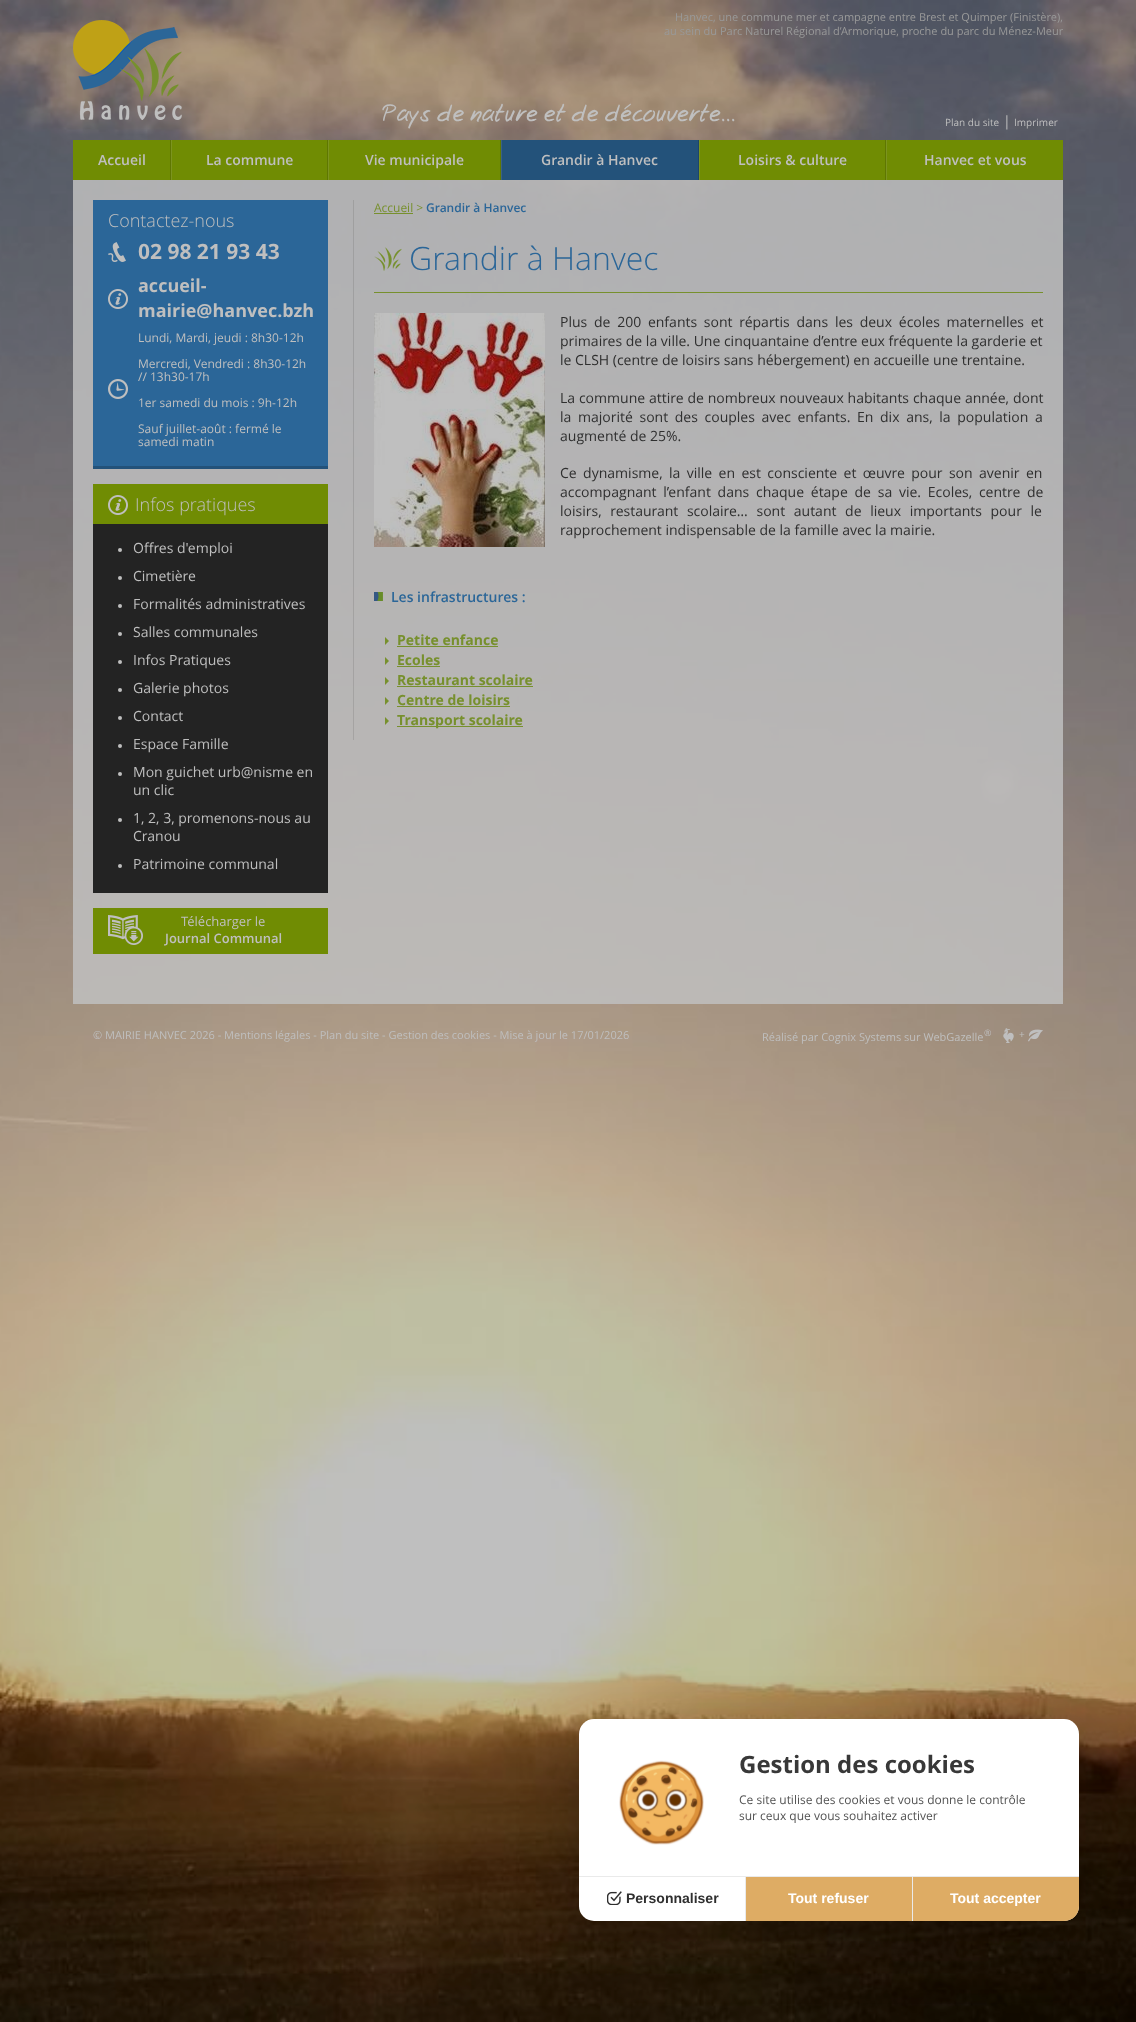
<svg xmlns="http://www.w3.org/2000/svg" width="1136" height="2022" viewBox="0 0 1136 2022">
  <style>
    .t1 { font: 500 24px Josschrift; fill: #bfbfbf; }
    .t2 { font: 11px Open Sans; fill: #999; }
    .t3 { font: 10px Open Sans; fill: #bfbfbf; }
    .t4 { font: 14px Open Sans; fill: #bfbfbf; }
    .t5 { font: 600 14px Open Sans; fill: #bfbfbf; }
    .t6 { font: 300 18px Open Sans; fill: #bfbfbf; }
    .t7 { font: bold 21px Open Sans; fill: #bfbfbf; }
    .t8 { font: bold 18px Open Sans; fill: #bfbfbf; }
    .t9 { font: 12px Open Sans; fill: #bfbfbf; }
    .t10 { font: 13px Open Sans; fill: #bfbfbf; }
    .t11 { font: 600 13px Open Sans; fill: #bfbfbf; }
    .t12 { font: 12px Open Sans; fill: #77902d; }
    .t13 { font: 600 12px Open Sans; fill: #2b6698; }
    .t14 { font: 300 32px Open Sans; fill: #2b6698; }
    .t15 { font: 14px Open Sans; fill: #2f2f2f; }
    .t16 { font: 600 14px Open Sans; fill: #2b6698; }
    .t17 { font: bold 14px Open Sans; fill: #77902d; }
    .t18 { font: 11px Open Sans; fill: #bfbfbf; }
    .t19 { font: 9px Open Sans; fill: #bfbfbf; }
    .t20 { font: bold 24px Open Sans; fill: #383838; }
    .t21 { font: 12px Open Sans; fill: #535353; }
    .t22 { font: bold 14px Liberation Sans; fill: #2f2f2f; }
    .t23 { font: bold 14px Liberation Sans; fill: #fff; }
  </style>
  <rect width="100%" height="100%" fill="#fff"/>
  <image x="0" y="0" width="1136" height="2022" href="images/1.png"/>
  <image x="73" y="20" width="109" height="100" href="images/2.png"/>
  <text x="382" y="121" class="t1">Pays de nature et de découverte...</text>
  <text x="675" y="21" class="t2">Hanvec, une commune mer et campagne entre Brest et Quimper (Finistère),</text>
  <text x="664" y="35" class="t2">au sein du Parc Naturel Régional d’Armorique, proche du parc du Ménez-Meur</text>
  <text x="945" y="126" class="t3">Plan du site</text>
  <text x="1003" y="126" class="t4">|</text>
  <text x="1014" y="126" class="t3">Imprimer</text>
  <rect x="73" y="140" width="990" height="40" fill="#708c03"/>
  <rect x="170" y="140" width="1" height="40" fill="#5f7702"/>
  <text x="98" y="165" class="t5">Accueil</text>
  <rect x="327" y="140" width="1" height="40" fill="#5f7702"/>
  <rect x="171" y="140" width="1" height="40" fill="#7c9420"/>
  <text x="206" y="165" class="t5">La commune</text>
  <rect x="500" y="140" width="1" height="40" fill="#5f7702"/>
  <rect x="328" y="140" width="1" height="40" fill="#7c9420"/>
  <text x="365" y="165" class="t5">Vie municipale</text>
  <rect x="502" y="140" width="196" height="40" fill="#23527a"/>
  <rect x="698" y="140" width="1" height="40" fill="#1d4668"/>
  <rect x="501" y="140" width="1" height="40" fill="#3a6284"/>
  <text x="541" y="165" class="t5">Grandir à Hanvec</text>
  <rect x="885" y="140" width="1" height="40" fill="#5f7702"/>
  <rect x="699" y="140" width="1" height="40" fill="#7c9420"/>
  <text x="738" y="165" class="t5">Loisirs &amp; culture</text>
  <rect x="886" y="140" width="1" height="40" fill="#7c9420"/>
  <text x="924" y="165" class="t5">Hanvec et vous</text>
  <rect x="73" y="180" width="990" height="824" fill="#bfbfbfd9"/>
  <rect x="93" y="200" width="235" height="266" fill="#2b6698"/>
  <rect x="93" y="466" width="235" height="3" fill="#23527a"/>
  <text x="108" y="227" class="t6">Contactez-nous</text>
  <image x="108" y="242" width="18" height="20" href="images/3.png"/>
  <text x="138" y="259" class="t7">02 98 21 93 43</text>
  <image x="108" y="289" width="20" height="20" href="images/4.png"/>
  <text x="138" y="292" class="t8">accueil-</text>
  <text x="138" y="317" class="t8">mairie@hanvec.bzh</text>
  <image x="108" y="379" width="20" height="20" href="images/5.png"/>
  <text x="138" y="342" class="t9">Lundi, Mardi, jeudi : 8h30-12h</text>
  <text x="138" y="368" class="t9">Mercredi, Vendredi : 8h30-12h</text>
  <text x="138" y="381" class="t9">// 13h30-17h</text>
  <text x="138" y="407" class="t9">1er samedi du mois : 9h-12h</text>
  <text x="138" y="433" class="t9">Sauf juillet-août : fermé le</text>
  <text x="138" y="446" class="t9">samedi matin</text>
  <rect x="93" y="524" width="235" height="369" fill="#232323"/>
  <rect x="93" y="484" width="235" height="40" fill="#708c03"/>
  <image x="108" y="495" width="20" height="20" href="images/6.png"/>
  <text x="135" y="511" class="t6">Infos pratiques</text>
  <circle cx="120" cy="550" r="2" fill="#bfbfbf"/>
  <text x="133" y="553" class="t4">Offres d'emploi</text>
  <circle cx="120" cy="578" r="2" fill="#bfbfbf"/>
  <text x="133" y="581" class="t4">Cimetière</text>
  <circle cx="120" cy="606" r="2" fill="#bfbfbf"/>
  <text x="133" y="609" class="t4">Formalités administratives</text>
  <circle cx="120" cy="634" r="2" fill="#bfbfbf"/>
  <text x="133" y="637" class="t4">Salles communales</text>
  <circle cx="120" cy="662" r="2" fill="#bfbfbf"/>
  <text x="133" y="665" class="t4">Infos Pratiques</text>
  <circle cx="120" cy="690" r="2" fill="#bfbfbf"/>
  <text x="133" y="693" class="t4">Galerie photos</text>
  <circle cx="120" cy="718" r="2" fill="#bfbfbf"/>
  <text x="133" y="721" class="t4">Contact</text>
  <circle cx="120" cy="746" r="2" fill="#bfbfbf"/>
  <text x="133" y="749" class="t4">Espace Famille</text>
  <circle cx="120" cy="774" r="2" fill="#bfbfbf"/>
  <text x="133" y="777" class="t4">Mon guichet urb@nisme en</text>
  <text x="133" y="795" class="t4">un clic</text>
  <circle cx="120" cy="820" r="2" fill="#bfbfbf"/>
  <text x="133" y="823" class="t4">1, 2, 3, promenons-nous au</text>
  <text x="133" y="841" class="t4">Cranou</text>
  <circle cx="120" cy="866" r="2" fill="#bfbfbf"/>
  <text x="133" y="869" class="t4">Patrimoine communal</text>
  <rect x="93" y="908" width="235" height="46" fill="#708c03"/>
  <image x="108" y="915" width="35" height="30" href="images/7.png"/>
  <text x="181" y="926" class="t10">Télécharger le</text>
  <text x="165" y="943" class="t11">Journal Communal</text>
  <rect x="353" y="200" width="1" height="540" fill="#0000001a"/>
  <text x="374" y="212" class="t12">Accueil &gt;</text>
  <rect x="374" y="213" width="39" height="1" fill="#77902d"/>
  <text x="426" y="212" class="t13">Grandir à Hanvec</text>
  <image x="374" y="247" width="28" height="24" href="images/8.png"/>
  <rect x="374" y="292" width="669" height="1" fill="#77902d"/>
  <text x="409" y="270" class="t14">Grandir à Hanvec</text>
  <image x="374" y="313" width="171" height="234" href="images/9.png"/>
  <text x="560" y="327" word-spacing="3.1" class="t15">Plus de 200 enfants sont répartis dans les deux écoles maternelles et</text>
  <text x="560" y="346" class="t15">primaires de la ville. Une cinquantaine d’entre eux fréquente la garderie et</text>
  <text x="560" y="365" class="t15">le CLSH (centre de loisirs sans hébergement) en accueille une trentaine.</text>
  <text x="560" y="403" word-spacing="0.25" class="t15">La commune attire de nombreux nouveaux habitants chaque année, dont</text>
  <text x="560" y="422" word-spacing="3" class="t15">la majorité sont des couples avec enfants. En dix ans, la population a</text>
  <text x="560" y="441" class="t15">augmenté de 25%.</text>
  <text x="560" y="478" word-spacing="2.75" class="t15">Ce dynamisme, la ville en est consciente et œuvre pour son avenir en</text>
  <text x="560" y="497" word-spacing="3.1" class="t15">accompagnant l’enfant dans chaque étape de sa vie. Ecoles, centre de</text>
  <text x="560" y="516" word-spacing="5" class="t15">loisirs, restaurant scolaire… sont autant de lieux importants pour le</text>
  <text x="560" y="535" class="t15">rapprochement indispensable de la famille avec la mairie.</text>
  <image x="374" y="592" width="9" height="9" href="images/10.png"/>
  <text x="391" y="602" class="t16">Les infrastructures :</text>
  <path d="M385 645V637L389 641ZM385 665V657L389 661ZM385 685V677L389 681Z" fill="#77902d"/>
  <text x="397" y="645" class="t17">Petite enfance</text>
  <rect x="397" y="646" width="101" height="1" fill="#77902d"/>
  <text x="397" y="665" class="t17">Ecoles</text>
  <rect x="397" y="666" width="43" height="1" fill="#77902d"/>
  <text x="397" y="685" class="t17">Restaurant scolaire</text>
  <rect x="397" y="686" width="136" height="1" fill="#77902d"/>
  <path d="M385 705V697L389 701ZM385 725V717L389 721Z" fill="#77902d"/>
  <text x="397" y="705" class="t17">Centre de loisirs</text>
  <rect x="397" y="706" width="113" height="1" fill="#77902d"/>
  <rect x="397" y="726" width="126" height="1" fill="#77902d"/>
  <text x="397" y="725" class="t17">Transport scolaire</text>
  <text x="93" y="1039" class="t18">© MAIRIE HANVEC 2026 - Mentions légales - Plan du site - Gestion des cookies - Mise à jour le 17/01/2026</text>
  <text x="762" y="1041" class="t18">Réalisé par Cognix Systems sur WebGazelle</text>
  <text x="984" y="1036" class="t19">®</text>
  <image x="1003" y="1028" width="11" height="15" href="images/11.png"/>
  <text x="1019" y="1038" class="t3">+</text>
  <image x="1028" y="1029" width="15" height="13" href="images/12.png"/>
  <rect x="579" y="1739" width="500" height="202" rx="15" fill="#00000033" filter="blur(30px)"/>
  <rect x="579" y="1719" width="500" height="202" rx="15" fill="#fff"/>
  <text x="739" y="1773" class="t20">Gestion des cookies</text>
  <image x="619" y="1760" width="85" height="85" href="images/13.png"/>
  <text x="739" y="1804" class="t21">Ce site utilise des cookies et vous donne le contrôle</text>
  <text x="739" y="1820" class="t21">sur ceux que vous souhaitez activer</text>
  <path d="M913 1876H1079V1906C1079 1914.5 1072.5 1921 1064 1921H913Z" fill="#deac64"/>
  <rect x="579" y="1876" width="500" height="1" fill="#eaeaea"/>
  <rect x="745" y="1876" width="1" height="45" fill="#eaeaea"/>
  <image x="607" y="1891" width="15" height="14" href="images/14.png"/>
  <text x="626" y="1903" class="t22">Personnaliser</text>
  <rect x="746" y="1877" width="166" height="44" fill="#deac64"/>
  <rect x="912" y="1876" width="1" height="45" fill="#eaeaea"/>
  <text x="788" y="1903" class="t23">Tout refuser</text>
  <text x="950" y="1903" class="t23">Tout accepter</text>
</svg>
